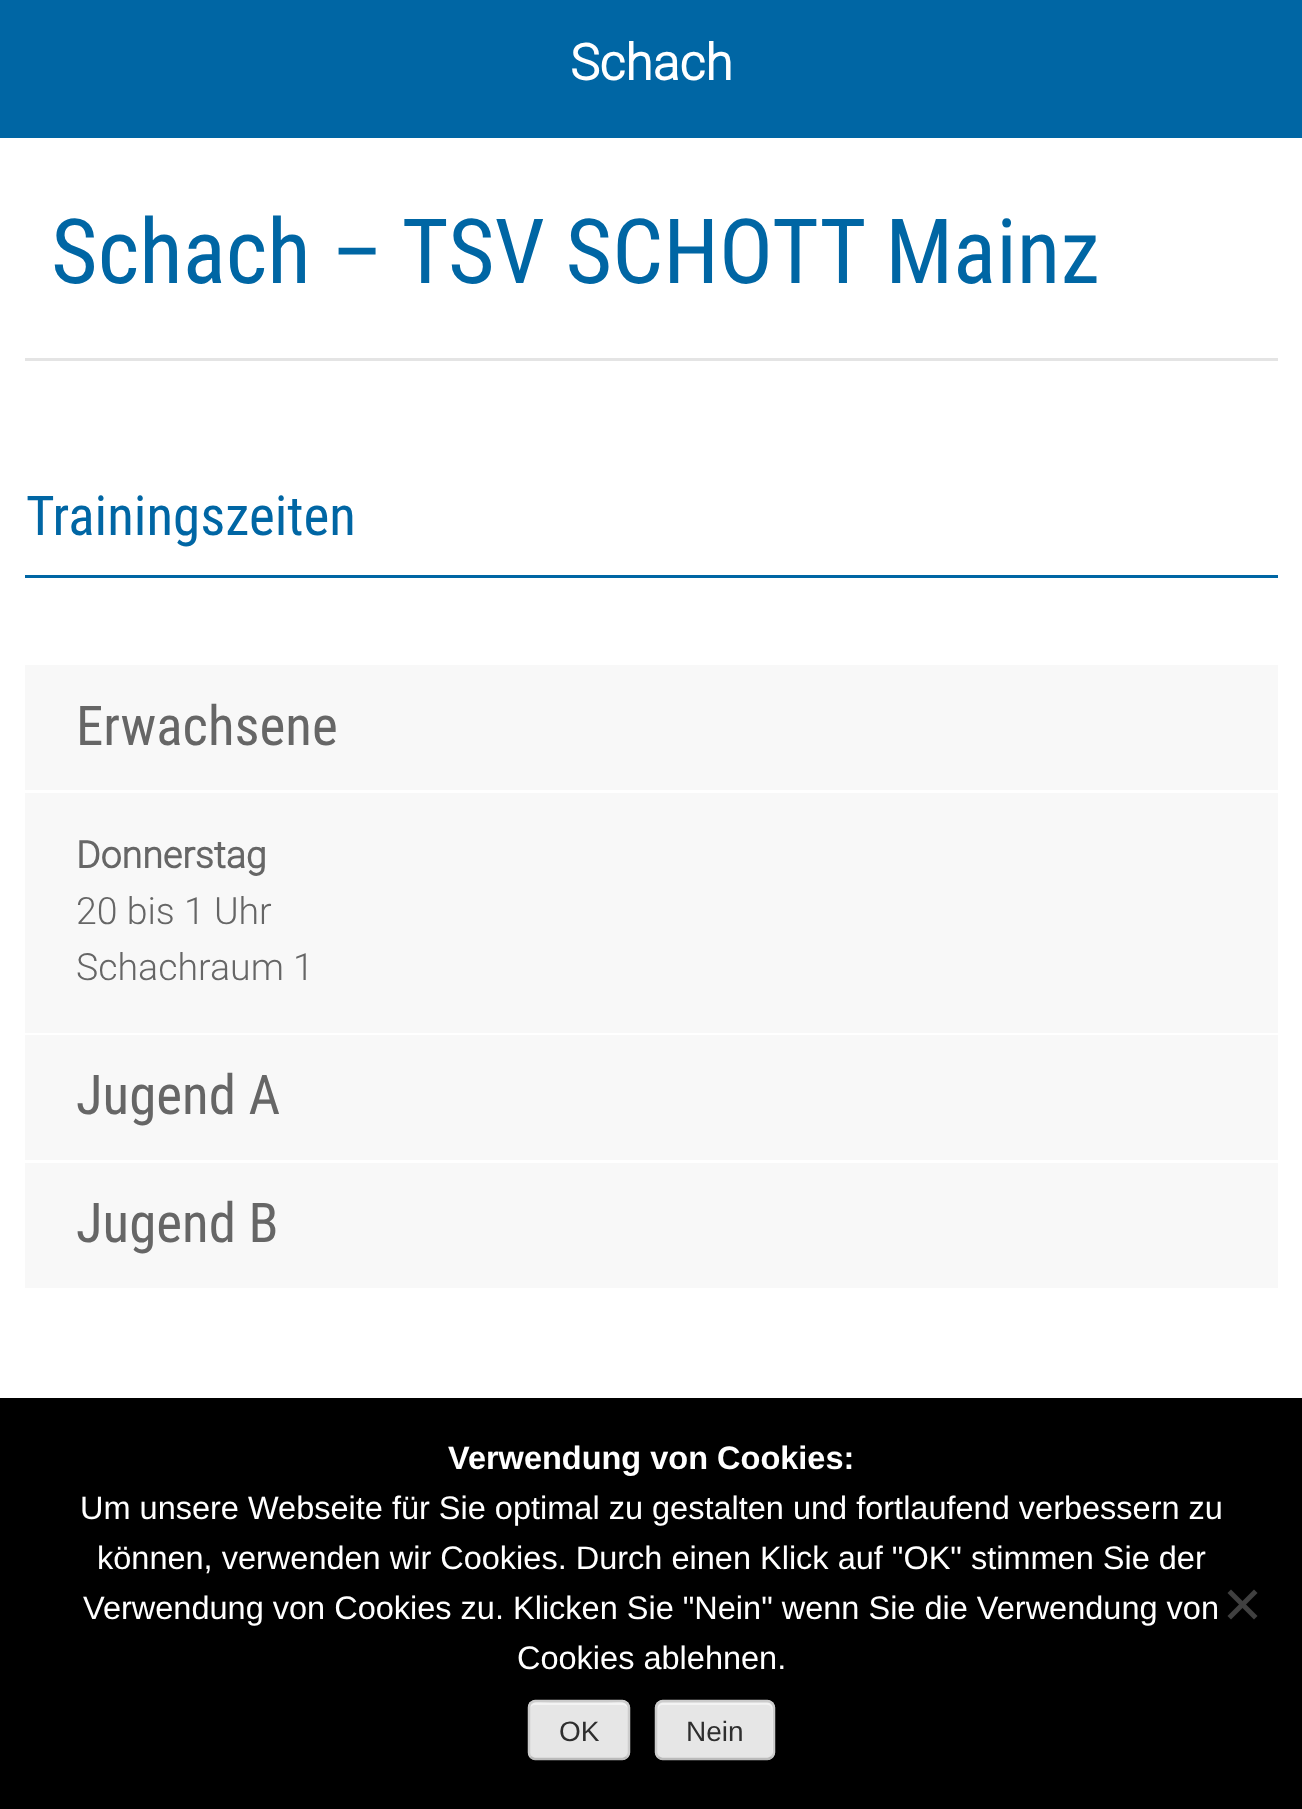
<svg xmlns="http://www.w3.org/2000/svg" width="1302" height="1809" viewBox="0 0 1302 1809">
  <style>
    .t1 { font: bold 50px Roboto; fill: #fff; }
    .t2 { font: 90px Roboto Condensed; fill: #0066a4; }
    .t3 { font: 55px Roboto Condensed; fill: #0066a4; }
    .t4 { font: 55px Roboto Condensed; fill: #666; }
    .t5 { font: bold 37.5px Roboto; fill: #666; }
    .t6 { font: 300 37.5px Roboto; fill: #666; }
    .t7 { font: bold 32.5px Liberation Sans; fill: #fff; }
    .t8 { font: 32.5px Liberation Sans; fill: #fff; }
    .t9 { font: 28px Liberation Sans; fill: #2e2e2e; }
  </style>
  <rect width="100%" height="100%" fill="#fff"/>
  <rect x="0" y="0" width="1302" height="138" fill="#0066a4"/>
  <text x="570" y="80" class="t1">Schach</text>
  <rect x="25" y="358" width="1253" height="3" fill="#e4e4e4"/>
  <text x="51" y="283" class="t2">Schach – TSV SCHOTT Mainz</text>
  <text x="26" y="535" class="t3">Trainingszeiten</text>
  <rect x="25" y="575" width="1253" height="3" fill="#0066a4"/>
  <rect x="25" y="665" width="1253" height="125" fill="#f8f8f8"/>
  <text x="76" y="745" class="t4">Erwachsene</text>
  <rect x="25" y="793" width="1253" height="240" fill="#f8f8f8"/>
  <text x="76" y="868" class="t5">Donnerstag</text>
  <text x="76" y="924" class="t6">20 bis 1 Uhr</text>
  <text x="76" y="980" class="t6">Schachraum 1</text>
  <rect x="25" y="1035" width="1253" height="125" fill="#f8f8f8"/>
  <text x="76" y="1114" class="t4">Jugend A</text>
  <rect x="25" y="1163" width="1253" height="125" fill="#f8f8f8"/>
  <text x="76" y="1242" class="t4">Jugend B</text>
  <rect x="0" y="1398" width="1302" height="411" fill="#000"/>
  <text x="448" y="1469" class="t7">Verwendung von Cookies:</text>
  <text x="80" y="1519" class="t8">Um unsere Webseite für Sie optimal zu gestalten und fortlaufend verbessern zu</text>
  <text x="97" y="1569" class="t8">können, verwenden wir Cookies. Durch einen Klick auf "OK" stimmen Sie der</text>
  <text x="83" y="1619" class="t8">Verwendung von Cookies zu. Klicken Sie "Nein" wenn Sie die Verwendung von</text>
  <text x="517" y="1669" class="t8">Cookies ablehnen.</text>
  <path d="M1254 1589.5L1257.5 1593L1231 1619.5L1227.5 1616Z" fill="#404040"/>
  <path d="M1227.5 1593L1231 1589.5L1257.5 1616L1254 1619.5Z" fill="#404040"/>
  <rect x="528" y="1700" width="102" height="60" rx="8" fill="#e6e6e6"/>
  <path d="M535 1705H622C625 1705 628 1707 628 1710C628 1699 617 1703 608 1703H550C541 1703 530 1699 530 1710C530 1707 532 1705 535 1705Z" fill="#f3f3f3"/>
  <path d="M627 1757C625.5 1758 624 1759 622.5 1759H535C533.5 1759 532 1758 530.5 1757" fill="none" stroke="#bbb" stroke-width="2.5"/>
  <path d="M530.5 1757C529.5 1755.5 529 1754 529 1752.5V1707.5C529 1706 529.5 1704.5 530.5 1703C532 1702 533.5 1701 535 1701H622.5C624 1701 625.5 1702 627 1703C628 1704.5 629 1706 629 1707.5V1752.5C629 1754 628 1755.5 627 1757" fill="none" stroke="#ccc" stroke-width="2.5"/>
  <text x="559" y="1741" class="t9">OK</text>
  <rect x="655" y="1700" width="120" height="60" rx="8" fill="#e6e6e6"/>
  <path d="M662 1705H750C775 1705 772 1701 772 1725V1756C773 1755 773 1754 773 1753V1708C773 1705 771 1703 768 1703H663C660 1703 658 1705 658 1708V1710C658 1707 660 1705 662 1705Z" fill="#f3f3f3"/>
  <path d="M772 1757C770.5 1758 769 1759 767.5 1759H662.5C661 1759 659.5 1758 658 1757" fill="none" stroke="#bbb" stroke-width="2.5"/>
  <path d="M658 1757C657 1755.5 656 1754 656 1752.5V1707.5C656 1706 657 1704.5 658 1703C659.5 1702 661 1701 662.5 1701H767.5C769 1701 770.5 1702 772 1703C773 1704.5 774 1706 774 1707.5V1752.5C774 1754 773 1755.5 772 1757" fill="none" stroke="#ccc" stroke-width="2.5"/>
  <text x="686" y="1741" class="t9">Nein</text>
</svg>
